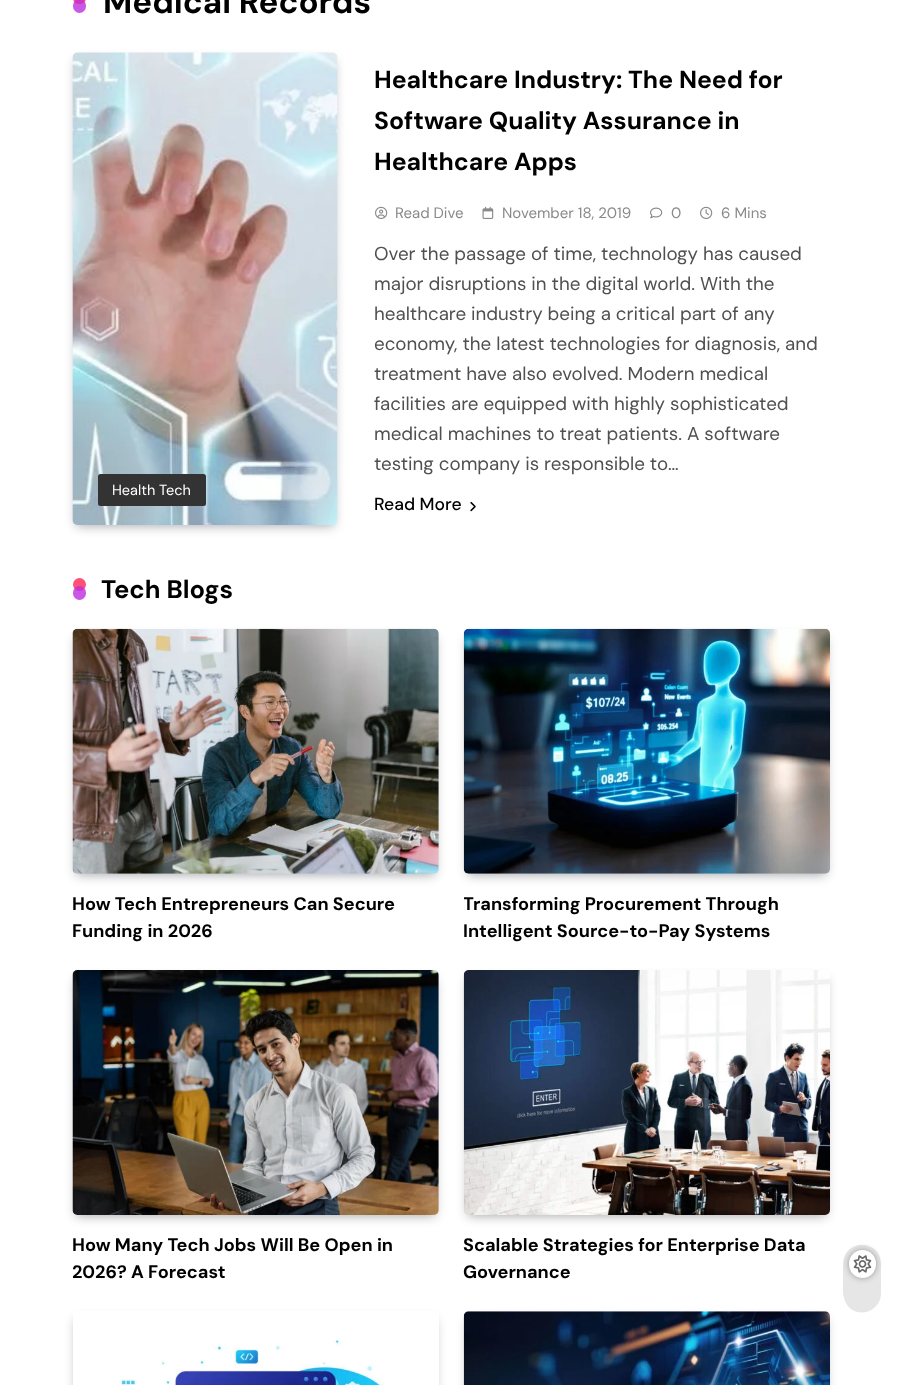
<svg xmlns="http://www.w3.org/2000/svg" width="901" height="1385" viewBox="0 0 901 1385">
  <style>
    .t1 { font: bold 33px DM Sans; fill: #000; }
    .t2 { font: 14.5px DM Sans; fill: #fff; }
    .t3 { font: bold 24.75px DM Sans; fill: #000; }
    .t4 { font: 15px DM Sans; fill: #8a8a8c; }
    .t5 { font: 18.75px DM Sans; fill: #505050; }
    .t6 { font: 500 17.5px DM Sans; fill: #000; }
    .t7 { font: bold 25.5px DM Sans; fill: #000; }
    .t8 { font: bold 18.1px DM Sans; fill: #000; }
  </style>
  <defs>
    <clipPath id="clip1"><rect x="464" y="891" width="366" height="54"/></clipPath>
    <clipPath id="clip2"><rect x="73" y="1233" width="366" height="53"/></clipPath>
    <clipPath id="clip3"><path d="M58 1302H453V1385H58ZM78 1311H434C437 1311 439 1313 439 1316V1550C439 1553 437 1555 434 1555H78C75 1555 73 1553 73 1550V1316C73 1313 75 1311 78 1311Z" clip-rule="evenodd"/></clipPath>
  </defs>
  <rect width="100%" height="100%" fill="#fff"/>
  <rect x="73" y="-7" width="13" height="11" rx="6.5" fill="#ff5075"/>
  <rect x="73" y="-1" width="13" height="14" rx="6.5" fill="#be2eddcc"/>
  <text x="103" y="13" class="t1">Medical Records</text>
  <rect x="76" y="61" width="258" height="465" rx="1" fill="#070a1959" filter="blur(5.5px)"/>
  <image x="72" y="52" width="266" height="473" href="images/1.png"/>
  <rect x="98" y="474" width="108" height="32" rx="2.5" fill="#333"/>
  <text x="112" y="495" class="t2">Health Tech</text>
  <text x="374" y="88" class="t3">Healthcare Industry: The Need for</text>
  <text x="374" y="129" class="t3">Software Quality Assurance in</text>
  <text x="374" y="170" class="t3">Healthcare Apps</text>
  <image x="375" y="206" width="13" height="13" href="images/2.png"/>
  <text x="395" y="218" class="t4">Read Dive</text>
  <image x="482" y="206" width="12" height="13" href="images/3.png"/>
  <text x="502" y="218" class="t4">November 18, 2019</text>
  <image x="650" y="207" width="13" height="12" href="images/4.png"/>
  <text x="671" y="218" class="t4">0</text>
  <image x="700" y="206" width="13" height="13" href="images/5.png"/>
  <text x="721" y="218" class="t4">6 Mins</text>
  <text x="374" y="260" class="t5">Over the passage of time, technology has caused</text>
  <text x="374" y="290" class="t5">major disruptions in the digital world. With the</text>
  <text x="374" y="320" class="t5">healthcare industry being a critical part of any</text>
  <text x="374" y="350" class="t5">economy, the latest technologies for diagnosis, and</text>
  <text x="374" y="380" class="t5">treatment have also evolved. Modern medical</text>
  <text x="374" y="410" class="t5">facilities are equipped with highly sophisticated</text>
  <text x="374" y="440" class="t5">medical machines to treat patients. A software</text>
  <text x="374" y="470" class="t5">testing company is responsible to…</text>
  <text x="374" y="510" class="t6">Read More</text>
  <image x="470" y="501" width="6" height="11" href="images/6.png"/>
  <circle cx="79.5" cy="584.5" r="6.5" fill="#ff5075"/>
  <text x="101" y="598" class="t7">Tech Blogs</text>
  <rect x="73" y="586" width="13" height="14" rx="6.5" fill="#be2eddcc"/>
  <rect x="76" y="638" width="359" height="237" rx="1" fill="#070a1959" filter="blur(5.5px)"/>
  <image x="72" y="628" width="367" height="246" href="images/7.png"/>
  <text x="72" y="910" class="t8">How Tech Entrepreneurs Can Secure</text>
  <text x="72" y="937" class="t8">Funding in 2026</text>
  <rect x="468" y="638" width="358" height="237" rx="1" fill="#070a1959" filter="blur(5.5px)"/>
  <image x="463" y="628" width="367" height="246" href="images/8.png"/>
  <g clip-path="url(#clip1)">
    <text x="463" y="910" class="t8">Transforming Procurement Through</text>
  </g>
  <text x="463" y="937" class="t8">Intelligent Source-to-Pay Systems</text>
  <rect x="76" y="979" width="359" height="237" rx="1" fill="#070a1959" filter="blur(5.5px)"/>
  <image x="72" y="970" width="367" height="245" href="images/9.png"/>
  <text x="72" y="1251" class="t8">How Many Tech Jobs Will Be Open in</text>
  <g clip-path="url(#clip2)">
    <text x="72" y="1278" class="t8">2026? A Forecast</text>
  </g>
  <rect x="468" y="979" width="358" height="237" rx="1" fill="#070a1959" filter="blur(5.5px)"/>
  <image x="463" y="970" width="367" height="245" href="images/10.png"/>
  <text x="463" y="1251" class="t8">Scalable Strategies for Enterprise Data</text>
  <text x="463" y="1278" class="t8">Governance</text>
  <g clip-path="url(#clip3)">
    <rect x="76" y="1320" width="359" height="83" rx="1" fill="#070a1959" filter="blur(5.5px)"/>
  </g>
  <image x="121" y="1340" width="281" height="45" href="images/11.png"/>
  <rect x="468" y="1320" width="358" height="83" rx="1" fill="#070a1959" filter="blur(5.5px)"/>
  <image x="463" y="1311" width="367" height="74" href="images/12.png"/>
  <path d="M881 1264V1294C880 1314 853 1320 845 1301C842 1294 843 1286 843 1279V1264C844 1238 881 1239 881 1264Z" fill="#e6e6e6"/>
  <rect x="849" y="1250" width="27" height="28" rx="13.5" fill="#00000059" filter="blur(3px)"/>
  <rect x="849" y="1250" width="27" height="28" rx="13.5" fill="#fff"/>
  <image x="853" y="1255" width="19" height="18" href="images/13.png"/>
</svg>
